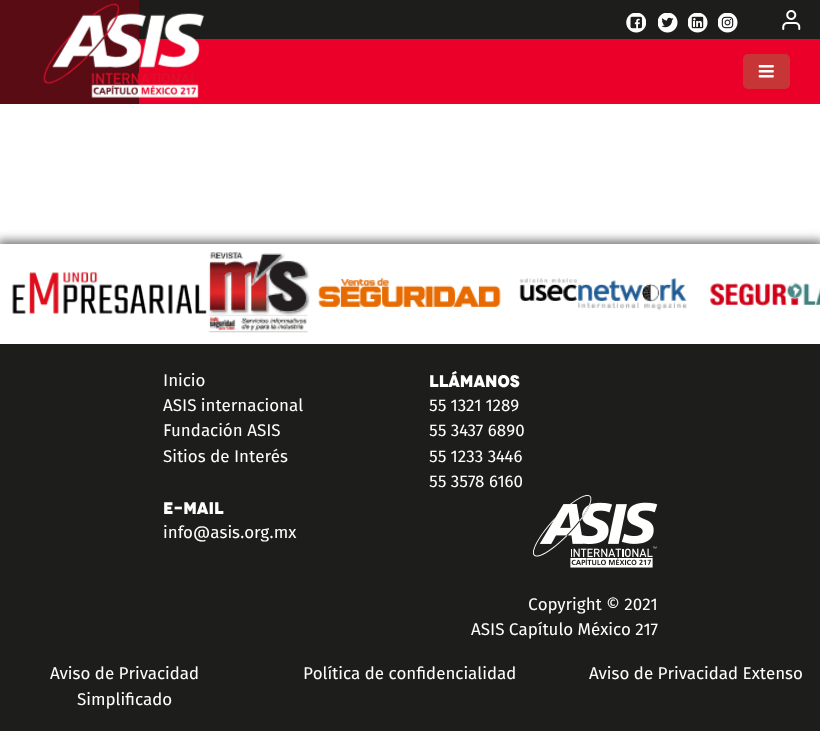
<svg xmlns="http://www.w3.org/2000/svg" width="820" height="731" viewBox="0 0 820 731">
  <style>
    .t1 { font: 16.9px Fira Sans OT; fill: #fff; }
    .t2 { font: 800 16.9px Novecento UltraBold; fill: #fff; }
  </style>
  <defs>
    <linearGradient id="g1" gradientUnits="userSpaceOnUse" x1="0" y1="19" x2="820" y2="19"><stop offset="0" stop-color="#590c14"/><stop offset="0.17" stop-color="#590c14"/><stop offset="0.17" stop-color="#330308"/><stop offset="0.17" stop-color="#1d1d1b"/><stop offset="1" stop-color="#1d1d1b"/></linearGradient>
    <linearGradient id="g2" gradientUnits="userSpaceOnUse" x1="0" y1="71" x2="820" y2="71"><stop offset="0" stop-color="#590c14"/><stop offset="0.17" stop-color="#590c14"/><stop offset="0.17" stop-color="#330308"/><stop offset="0.17" stop-color="#ea0029"/><stop offset="1" stop-color="#ea0029"/></linearGradient>
  </defs>
  <rect width="100%" height="100%" fill="#fff"/>
  <rect x="0" y="0" width="820" height="39" fill="url(#g1)"/>
  <image x="626" y="13" width="20" height="20" href="images/1.png"/>
  <image x="658" y="13" width="20" height="20" href="images/2.png"/>
  <image x="688" y="13" width="20" height="20" href="images/3.png"/>
  <image x="718" y="13" width="20" height="20" href="images/4.png"/>
  <image x="782" y="10" width="19" height="20" href="images/5.png"/>
  <rect x="0" y="39" width="820" height="65" fill="url(#g2)"/>
  <image x="43" y="3" width="161" height="95" href="images/6.png"/>
  <rect x="743" y="54" width="47" height="35" rx="5" fill="#c73537"/>
  <image x="758" y="65" width="16" height="13" href="images/7.png"/>
  <rect x="-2" y="240" width="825" height="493" fill="#00000080" filter="blur(5px)"/>
  <rect x="0" y="344" width="820" height="387" fill="#1d1d1b"/>
  <rect x="0" y="244" width="820" height="100" fill="#fff"/>
  <image x="12" y="272" width="195" height="42" href="images/8.png"/>
  <image x="208" y="252" width="102" height="81" href="images/9.png"/>
  <image x="318" y="277" width="183" height="30" href="images/10.png"/>
  <image x="519" y="278" width="168" height="33" href="images/11.png"/>
  <image x="710" y="282" width="110" height="24" href="images/12.png"/>
  <text x="163" y="386" class="t1">Inicio</text>
  <text x="163" y="411" class="t1">ASIS internacional</text>
  <text x="163" y="436" class="t1">Fundación ASIS</text>
  <text x="163" y="462" class="t1">Sitios de Interés</text>
  <text x="429" y="387" class="t2">LLÁMANOS</text>
  <text x="429" y="411" class="t1">55 1321 1289</text>
  <text x="429" y="436" class="t1">55 3437 6890</text>
  <text x="429" y="462" class="t1">55 1233 3446</text>
  <text x="429" y="487" class="t1">55 3578 6160</text>
  <text x="163" y="514" class="t2">E-MAIL</text>
  <text x="163" y="538" class="t1">info@asis.org.mx</text>
  <image x="533" y="495" width="125" height="73" href="images/13.png"/>
  <text x="528" y="610" class="t1">Copyright © 2021</text>
  <text x="471" y="635" class="t1">ASIS Capítulo México 217</text>
  <text x="50" y="679" class="t1">Aviso de Privacidad</text>
  <text x="77" y="705" class="t1">Simplificado</text>
  <text x="303" y="679" class="t1">Política de confidencialidad</text>
  <text x="589" y="679" class="t1">Aviso de Privacidad Extenso</text>
</svg>
